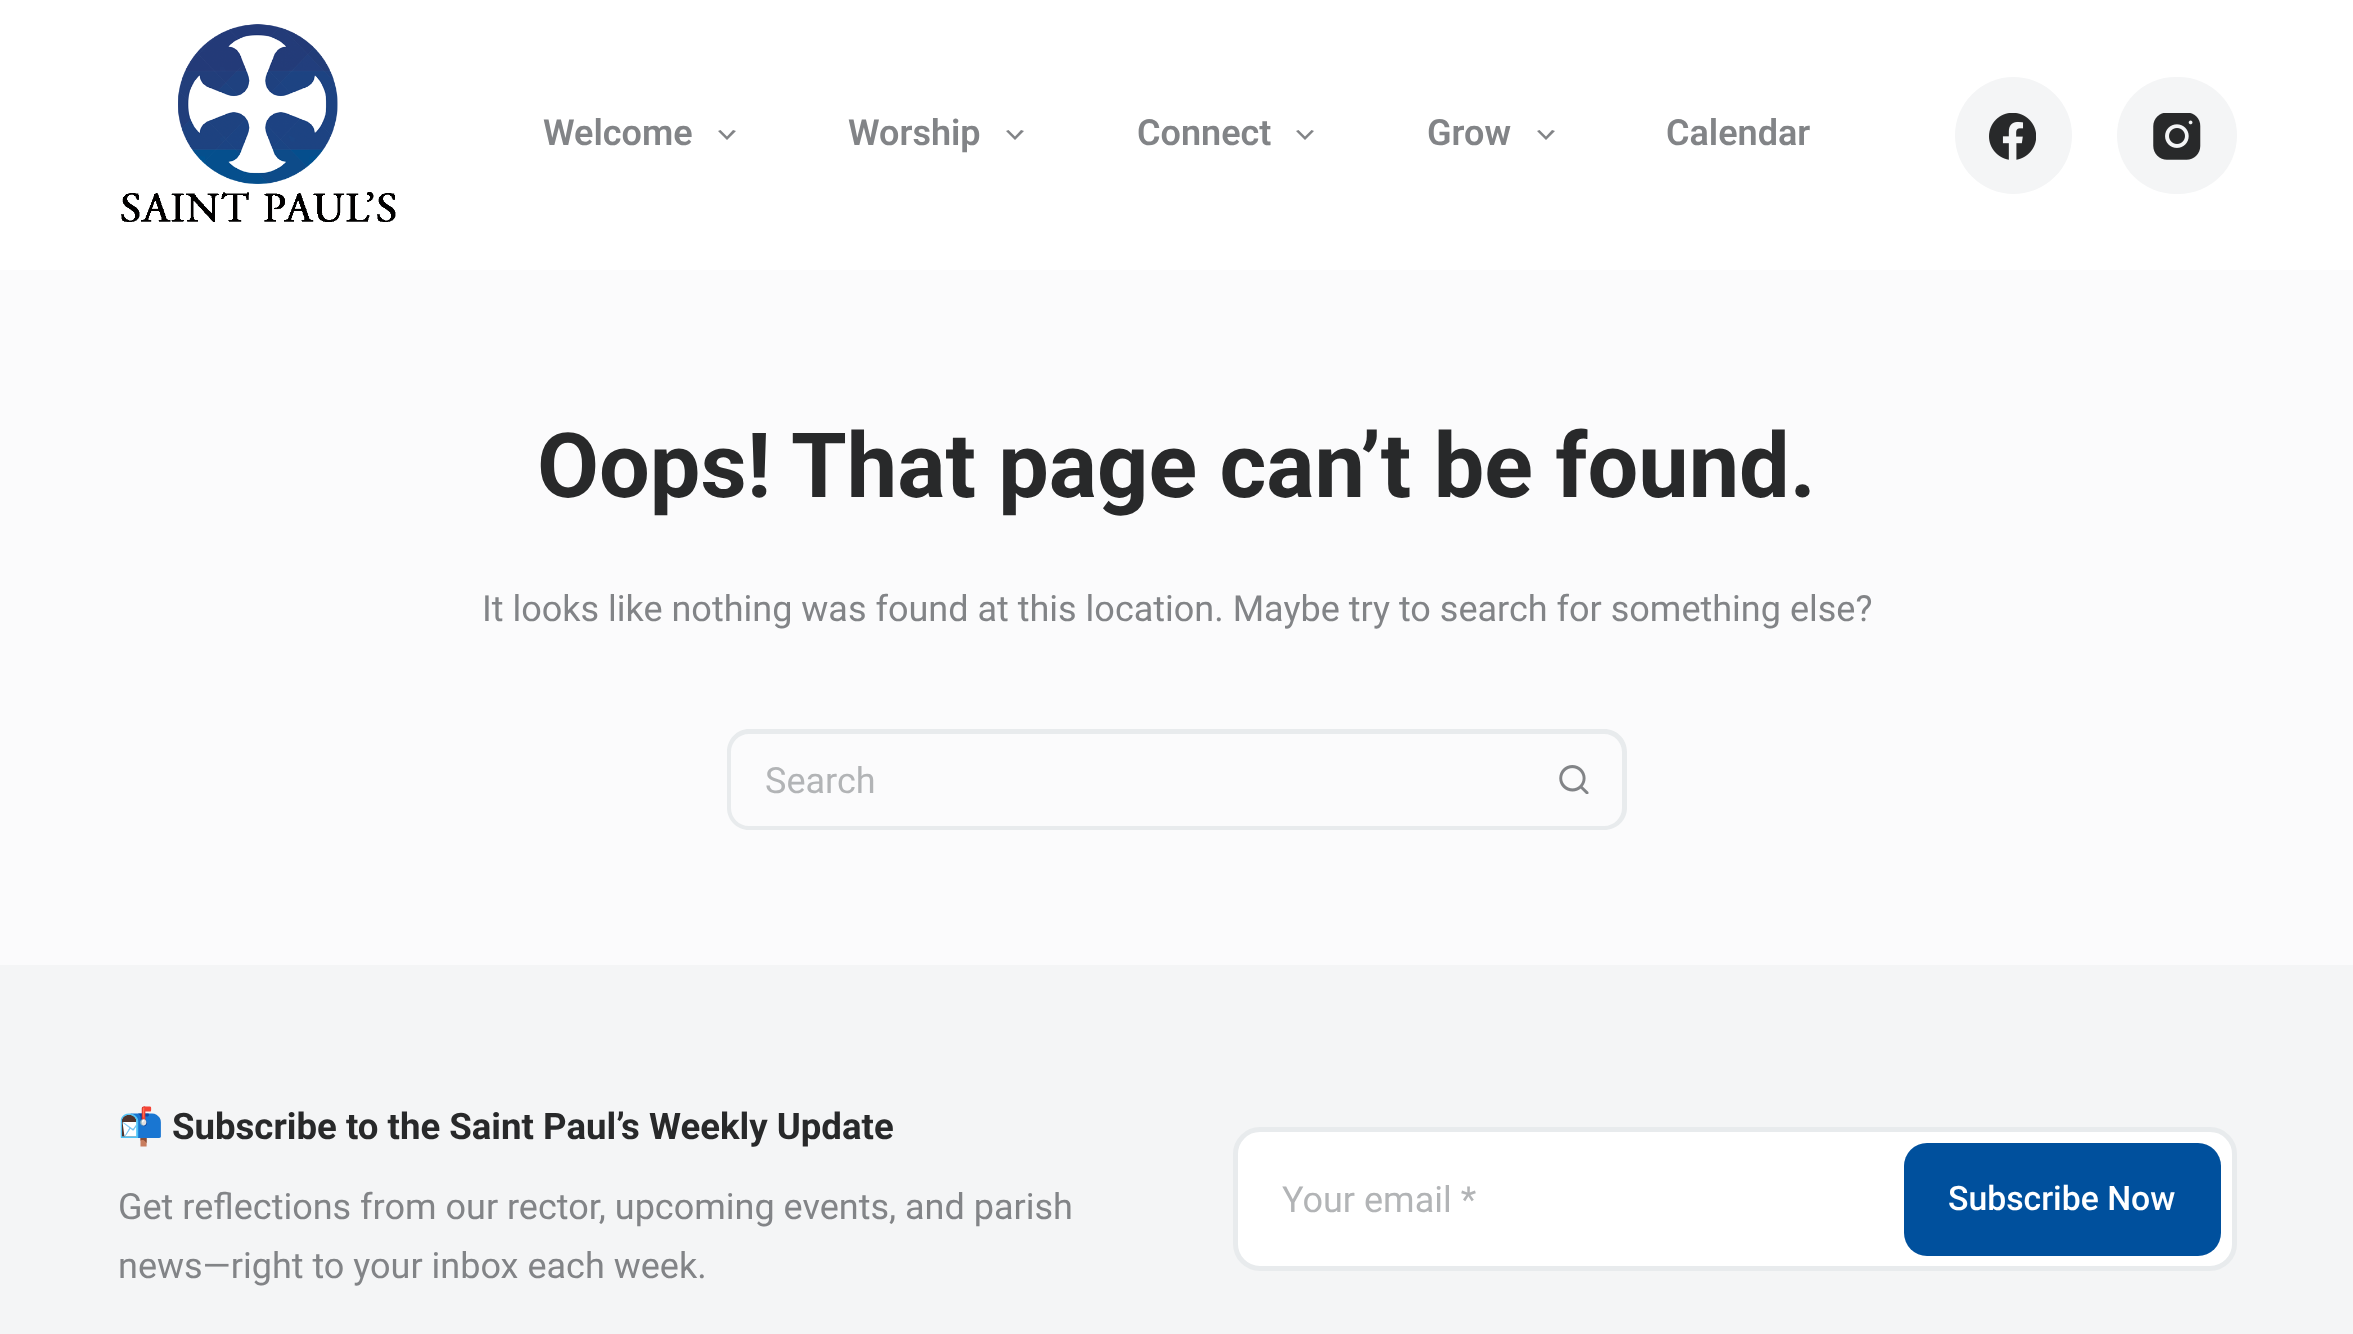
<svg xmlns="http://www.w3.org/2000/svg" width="2353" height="1334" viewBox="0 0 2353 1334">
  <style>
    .t1 { font: 600 36px Roboto; fill: #828487; }
    .t2 { font: bold 90px Roboto; fill: #28292a; }
    .t3 { font: 36px Roboto; fill: #828487; }
    .t4 { font: 36px Roboto; fill: #b2b4b6; }
    .t5 { font: bold 36.6px Noto Color Emoji; fill: #28292a; }
    .t6 { font: bold 36.6px Roboto; fill: #28292a; }
    .t7 { font: 500 33.75px Roboto; fill: #fff; }
  </style>
  <rect width="100%" height="100%" fill="#fbfbfc"/>
  <rect x="0" y="0" width="2353" height="270" fill="#fff"/>
  <image x="121" y="24" width="275" height="198" href="images/1.png"/>
  <text x="543" y="145" class="t1">Welcome</text>
  <path d="M720.5 130L727 136.5L733 130L736 131L727 140L718 131Z" fill="#828487"/>
  <text x="848" y="145" class="t1">Worship</text>
  <path d="M1008.5 130L1015 136.5L1021 130L1024 131L1015 140L1006 131Z" fill="#828487"/>
  <text x="1137" y="145" class="t1">Connect</text>
  <path d="M1298.5 130L1305 136.5L1311.5 130L1314 131L1305 140L1296 131Z" fill="#828487"/>
  <text x="1427" y="145" class="t1">Grow</text>
  <path d="M1539.5 130L1546 136.5L1552 130L1555 131L1546 140L1537 131Z" fill="#828487"/>
  <text x="1666" y="145" class="t1">Calendar</text>
  <circle cx="2013.5" cy="135.5" r="58.5" fill="#f4f5f6"/>
  <image x="1989" y="113" width="47" height="47" href="images/2.png"/>
  <rect x="2117" y="77" width="120" height="117" rx="58.5" fill="#f4f5f6"/>
  <image x="2153" y="113" width="48" height="47" href="images/3.png"/>
  <text x="537" y="497" class="t2">Oops! That page can’t be found.</text>
  <text x="482" y="621" class="t3">It looks like nothing was found at this location. Maybe try to search for something else?</text>
  <path d="M749 729H1526V830H749C737 830 727 820 727 808V752C727 739 737 729 749 729ZM749 734H1526V826H749C739 826 731 818 731 808V752C731 742 739 734 749 734Z" fill="#e8ebed" fill-rule="evenodd"/>
  <text x="765" y="793" class="t4">Search</text>
  <path d="M1526 729H1604C1617 729 1627 739 1627 752V808C1627 820 1617 830 1604 830H1526ZM1526 734H1604C1614 734 1622 742 1622 752V808C1622 818 1614 826 1604 826H1526Z" fill="#e8ebed" fill-rule="evenodd"/>
  <image x="1559" y="765" width="30" height="29" href="images/4.png"/>
  <rect x="0" y="965" width="2353" height="369" fill="#f4f5f6"/>
  <text x="118" y="1139" class="t5">📬</text>
  <text x="172" y="1139" class="t6">Subscribe to the Saint Paul’s Weekly Update</text>
  <text x="118" y="1219" class="t3">Get reflections from our rector, upcoming events, and parish</text>
  <text x="118" y="1278" class="t3">news—right to your inbox each week.</text>
  <rect x="1235.5" y="1129.5" width="999" height="139" rx="24.5" fill="#fff" stroke="#e8ebed" stroke-width="5"/>
  <text x="1282" y="1212" class="t4">Your email *</text>
  <rect x="1904" y="1143" width="317" height="113" rx="23" fill="#00509d"/>
  <text x="1948" y="1210" class="t7">Subscribe Now</text>
</svg>
